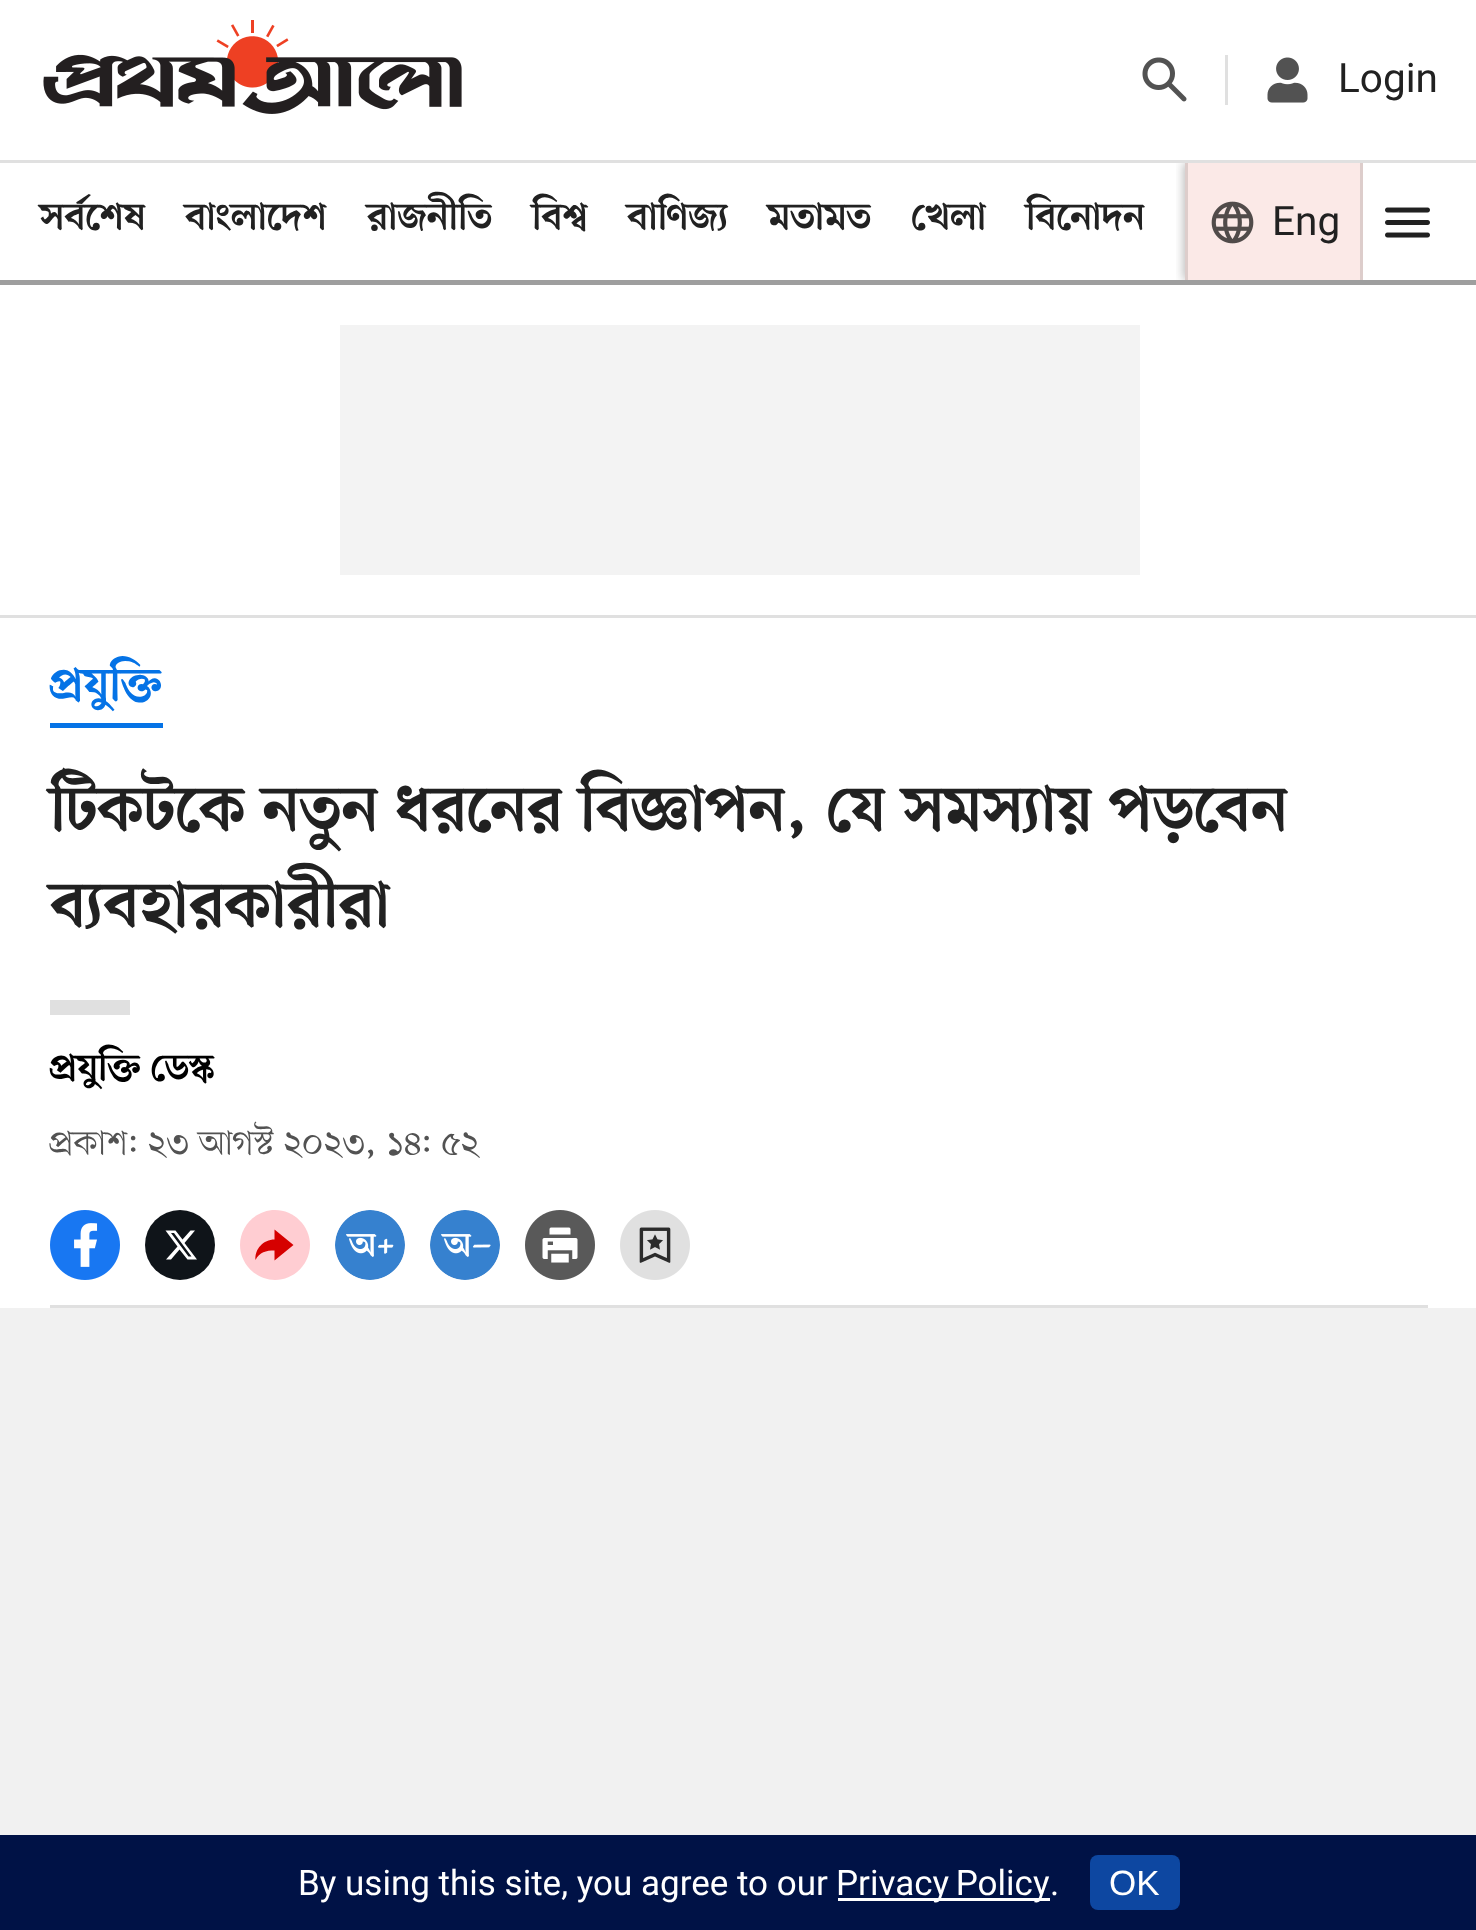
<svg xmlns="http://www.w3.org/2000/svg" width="1476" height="1930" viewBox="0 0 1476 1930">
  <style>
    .t1 { font: 40.5px Roboto; fill: #212121; }
    .t2 { font: bold 40.5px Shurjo; fill: #212121; }
    .t3 { font: bold 50px Shurjo; fill: #0573e6; }
    .t4 { font: bold 68.8px Shurjo; fill: #212121; }
    .t5 { font: bold 40.5px Shurjo; fill: #000; }
    .t6 { font: 36.4px Shurjo; fill: #525252; }
    .t7 { font: 35px Roboto; fill: #fff; }
    .t8 { font: 35px Liberation Sans; fill: #fff; }
  </style>
  <defs>
    <clipPath id="clip1"><rect x="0" y="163" width="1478" height="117"/></clipPath>
    <clipPath id="clip2"><rect x="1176" y="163" width="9" height="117"/></clipPath>
  </defs>
  <rect width="100%" height="100%" fill="#fff"/>
  <rect x="0" y="280" width="1476" height="5" fill="#9e9e9e"/>
  <image x="43" y="20" width="419" height="94" href="images/1.png"/>
  <image x="1142" y="57" width="45" height="45" href="images/2.png"/>
  <rect x="1225" y="55" width="3" height="50" fill="#e0e0e0"/>
  <image x="1267" y="57" width="41" height="46" href="images/3.png"/>
  <text x="1338" y="92" class="t1">Login</text>
  <rect x="0" y="160" width="1476" height="3" fill="#e0e0e0"/>
  <text x="40" y="229" class="t2">সর্বশেষ</text>
  <text x="185" y="229" class="t2">বাংলাদেশ</text>
  <text x="367" y="229" class="t2">রাজনীতি</text>
  <text x="532" y="229" class="t2">বিশ্ব</text>
  <text x="627" y="229" class="t2">বাণিজ্য</text>
  <text x="768" y="229" class="t2">মতামত</text>
  <text x="911" y="229" class="t2">খেলা</text>
  <text x="1026" y="229" class="t2">বিনোদন</text>
  <g clip-path="url(#clip1)">
    <g clip-path="url(#clip2)">
      <rect x="1183" y="163" width="292" height="117" fill="#00000040" filter="blur(5px)"/>
    </g>
  </g>
  <rect x="1188" y="163" width="172" height="117" fill="#fbe9e7"/>
  <rect x="1360" y="163" width="3" height="117" fill="#ddcdcb"/>
  <rect x="1185" y="163" width="3" height="117" fill="#ddcdcb"/>
  <image x="1211" y="201" width="43" height="43" href="images/4.png"/>
  <text x="1272" y="235" class="t1">Eng</text>
  <image x="1385" y="207" width="45" height="31" href="images/5.png"/>
  <rect x="0" y="615" width="1476" height="3" fill="#e0e0e0"/>
  <rect x="340" y="325" width="800" height="250" fill="#f3f3f3"/>
  <rect x="50" y="723" width="113" height="5" fill="#0573e6"/>
  <text x="50" y="700" class="t3">প্রযুক্তি</text>
  <text x="50" y="830" class="t4">টিকটকে নতুন ধরনের বিজ্ঞাপন, যে সমস্যায় পড়বেন</text>
  <text x="50" y="926" class="t4">ব্যবহারকারীরা</text>
  <rect x="50" y="1305" width="1378" height="3" fill="#e0e0e0"/>
  <rect x="50" y="1000" width="80" height="15" fill="#e0e0e0"/>
  <text x="50" y="1080" class="t5">প্রযুক্তি ডেস্ক</text>
  <text x="50" y="1154" class="t6">প্রকাশ: ২৩ আগস্ট ২০২৩, ১৪: ৫২</text>
  <image x="50" y="1210" width="70" height="70" href="images/6.png"/>
  <circle cx="180" cy="1245" r="35" fill="#0f1419"/>
  <path d="M275 1210C294 1210 310 1226 310 1245C310 1264 294 1280 275 1280C256 1280 240 1264 240 1245C240 1226 256 1210 275 1210Z" fill="#ffcdd2"/>
  <circle cx="370" cy="1245" r="35" fill="#eee"/>
  <image x="335" y="1210" width="70" height="70" href="images/7.png"/>
  <circle cx="465" cy="1245" r="35" fill="#eee"/>
  <path d="M190.5 1230.5H195L184.5 1243L197 1259.5H187.5L179.5 1249.5L171 1259.5H166L177.5 1246.5L165.5 1230.5H175.5L182.5 1239.5ZM188.5 1256.5H191.5L174 1233H171Z" fill="#fff"/>
  <path d="M274.5 1250.5C266 1250.5 259.5 1252 255.5 1260C254.5 1249 263.5 1239.5 274.5 1239.5V1229.5L293.5 1245L274.5 1260.5Z" fill="#d60000"/>
  <image x="430" y="1210" width="70" height="70" href="images/8.png"/>
  <image x="525" y="1210" width="70" height="70" href="images/9.png"/>
  <image x="620" y="1210" width="70" height="70" href="images/10.png"/>
  <rect x="0" y="1308" width="1476" height="527" fill="#f1f1f1"/>
  <rect x="0" y="1835" width="1476" height="95" fill="#001246"/>
  <text x="298" y="1895" class="t7">By using this site, you agree to our</text>
  <rect x="838" y="1898" width="212" height="3" fill="#fff"/>
  <text x="836" y="1895" word-spacing="-2" class="t7">Privacy Policy</text>
  <text x="1050" y="1895" class="t7">.</text>
  <rect x="1090" y="1855" width="90" height="55" rx="8" fill="#0d47a1"/>
  <text x="1109" y="1895" class="t8">OK</text>
</svg>
